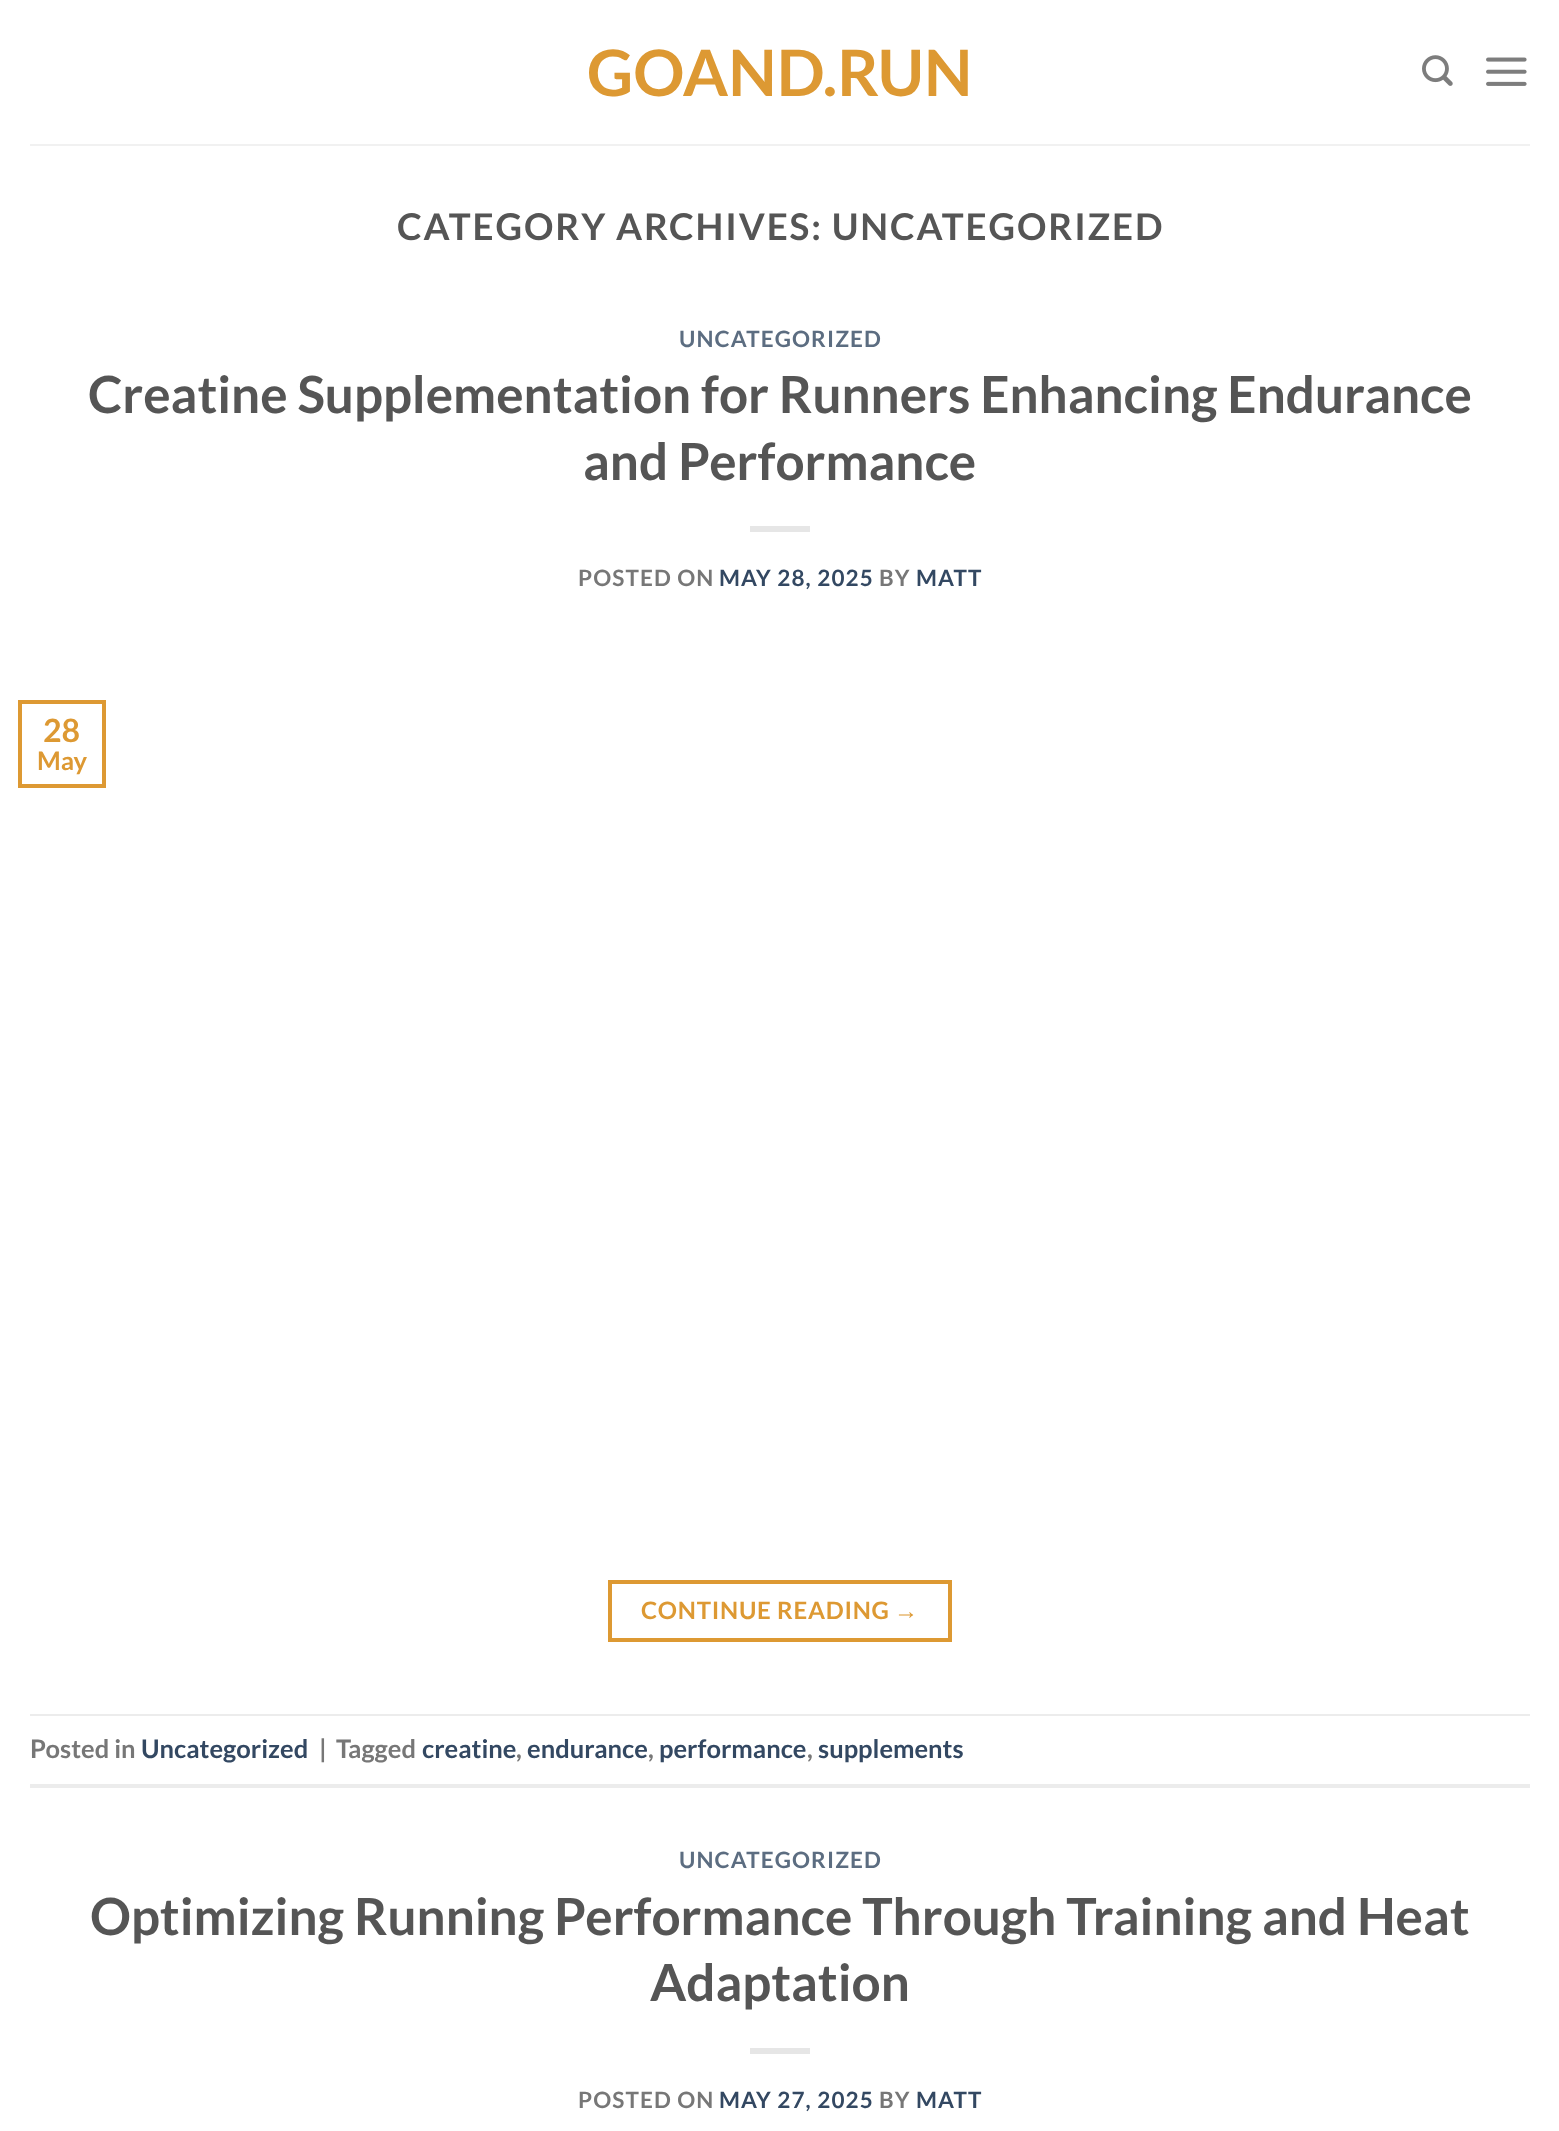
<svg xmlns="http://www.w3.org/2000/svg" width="1559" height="2131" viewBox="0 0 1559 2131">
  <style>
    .t1 { font: bold 64px Lato; fill: #d93; }
    .t2 { font: bold 36.8px Lato; letter-spacing: 1.85px; fill: #555; }
    .t3 { font: bold 22.5px Lato; letter-spacing: 1.1px; fill: #5c6d81; }
    .t4 { font: bold 51.2px Lato; fill: #555; }
    .t5 { font: bold 22.5px Lato; letter-spacing: 1.1px; fill: #777; }
    .t6 { font: bold 22.5px Lato; letter-spacing: 1.1px; fill: #334862; }
    .t7 { font: bold 32px Lato; fill: #d93; }
    .t8 { font: bold 25.5px Lato; fill: #d93; }
    .t9 { font: bold 24px Lato; letter-spacing: 0.75px; fill: #d93; }
    .t10 { font: bold 24px Liberation Sans; letter-spacing: 0.75px; fill: #d93; }
    .t11 { font: bold 25.5px Lato; fill: #777; }
    .t12 { font: bold 25.5px Lato; fill: #334862; }
  </style>
  <rect width="100%" height="100%" fill="#fff"/>
  <text x="587" y="96" class="t1">GOAND.RUN</text>
  <image x="1422" y="55" width="31" height="31" href="images/1.png"/>
  <image x="1486" y="57" width="41" height="29" href="images/2.png"/>
  <rect x="30" y="144" width="1500" height="2" fill="#f1f1f1"/>
  <text x="397" y="240" class="t2">CATEGORY ARCHIVES: UNCATEGORIZED</text>
  <text x="679" y="347" class="t3">UNCATEGORIZED</text>
  <text x="88" y="413" class="t4">Creatine Supplementation for Runners Enhancing Endurance</text>
  <text x="583" y="480" class="t4">and Performance</text>
  <rect x="750" y="526" width="60" height="6" fill="#e6e6e6"/>
  <text x="578" y="586" class="t5">POSTED ON</text>
  <text x="719" y="586" class="t6">MAY 28, 2025</text>
  <text x="879" y="586" class="t5">BY</text>
  <text x="916" y="586" class="t6">MATT</text>
  <rect x="20" y="702" width="84" height="84" fill="none" stroke="#d93" stroke-width="4"/>
  <text x="43" y="742" class="t7">28</text>
  <text x="37" y="770" class="t8">May</text>
  <rect x="610" y="1582" width="340" height="58" fill="none" stroke="#d93" stroke-width="4"/>
  <text x="641" y="1619" class="t9">CONTINUE READING</text>
  <text x="894" y="1619" class="t10">→</text>
  <rect x="30" y="1714" width="1500" height="2" fill="#ececec"/>
  <rect x="30" y="1784" width="1500" height="4" fill="#ececec"/>
  <text x="30" y="1758" class="t11">Posted in</text>
  <text x="141" y="1758" class="t12">Uncategorized</text>
  <text x="319" y="1758" class="t11">|</text>
  <text x="336" y="1758" class="t11">Tagged</text>
  <text x="422" y="1758" class="t12">creatine</text>
  <text x="516" y="1758" class="t11">,</text>
  <text x="527" y="1758" class="t12">endurance</text>
  <text x="648" y="1758" class="t11">,</text>
  <text x="659" y="1758" class="t12">performance</text>
  <text x="807" y="1758" class="t11">,</text>
  <text x="818" y="1758" class="t12">supplements</text>
  <text x="679" y="1868" class="t3">UNCATEGORIZED</text>
  <text x="90" y="1935" class="t4">Optimizing Running Performance Through Training and Heat</text>
  <text x="650" y="2001" class="t4">Adaptation</text>
  <rect x="750" y="2048" width="60" height="6" fill="#e6e6e6"/>
  <text x="578" y="2108" class="t5">POSTED ON</text>
  <text x="719" y="2108" class="t6">MAY 27, 2025</text>
  <text x="879" y="2108" class="t5">BY</text>
  <text x="916" y="2108" class="t6">MATT</text>
</svg>
